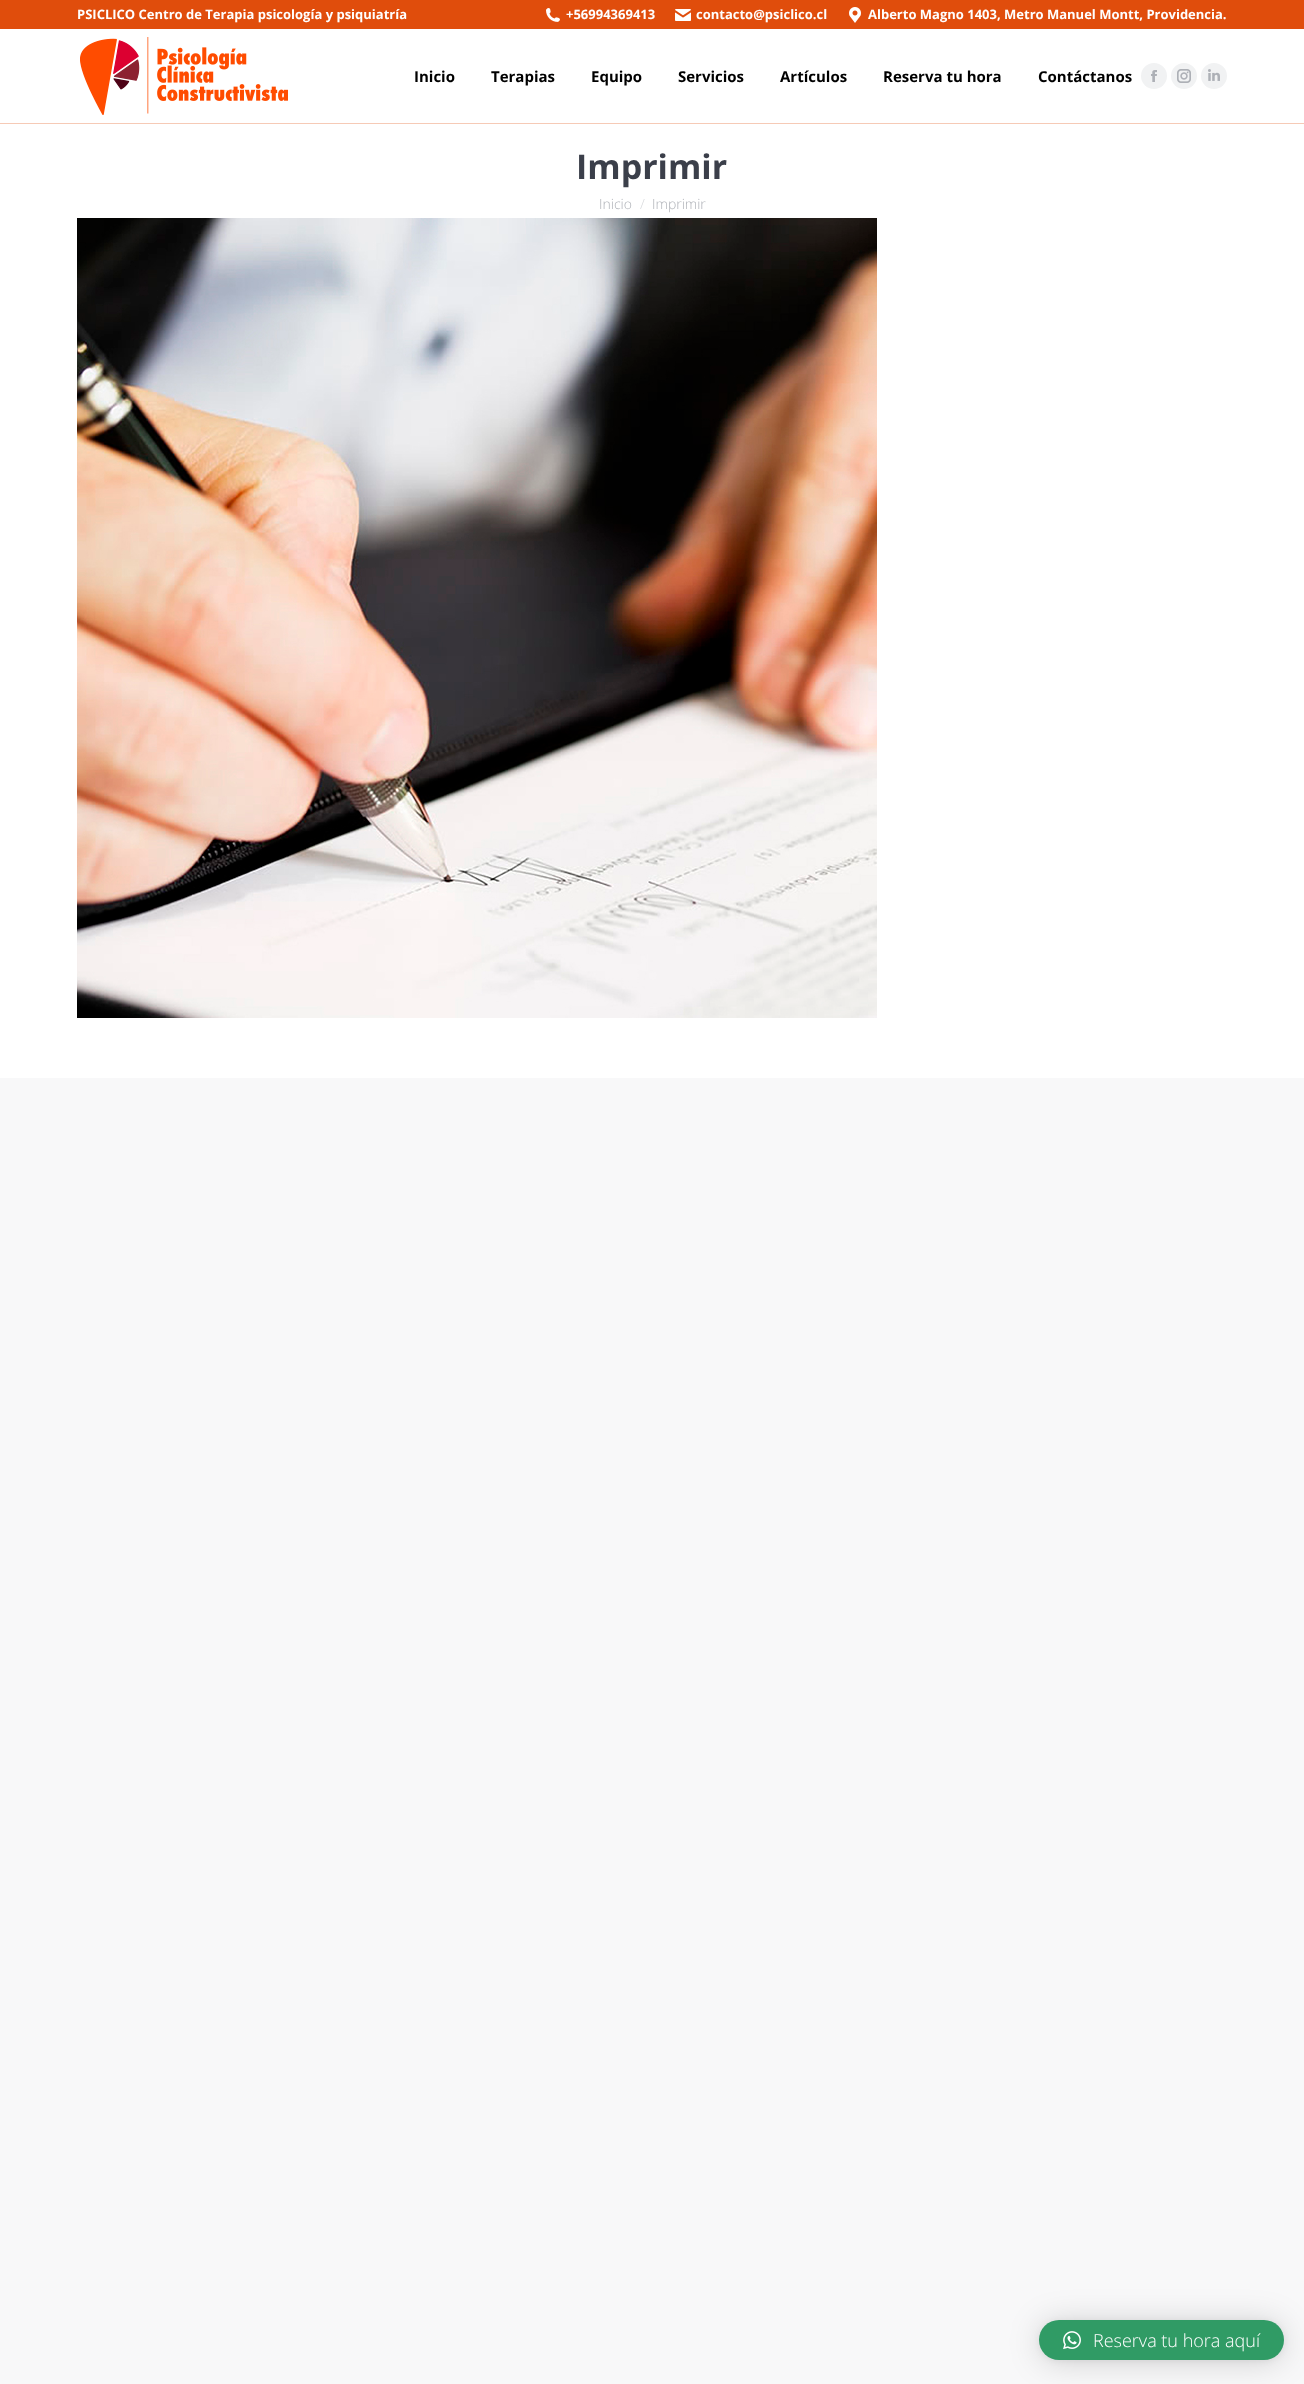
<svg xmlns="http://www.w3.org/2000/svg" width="1304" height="2384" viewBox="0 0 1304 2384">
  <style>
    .t1 { font: bold 13px Open Sans; fill: #fff; }
    .t2 { font: bold 15px Open Sans; fill: #000; }
    .t3 { font: bold 34px Open Sans; fill: #3b3f4a; }
    .t4 { font: 300 14px Open Sans; fill: #adb0b6; }
    .t5 { font: 300 14px Open Sans; fill: #d6d8db; }
    .t6 { font: 300 18px Open Sans; fill: #fff; }
  </style>
  <rect width="100%" height="100%" fill="#f8f8f9"/>
  <rect x="0" y="29" width="1304" height="1049" fill="#fff"/>
  <rect x="0" y="123" width="1304" height="1" fill="#f6cab6"/>
  <rect x="0" y="0" width="1304" height="29" fill="#e04d0c"/>
  <text x="77" y="19" class="t1">PSICLICO Centro de Terapia psicología y psiquiatría</text>
  <image x="546" y="8" width="14" height="14" href="images/1.png"/>
  <text x="566" y="19" class="t1">+56994369413</text>
  <image x="675" y="9" width="16" height="12" href="images/2.png"/>
  <text x="696" y="19" class="t1">contacto@psiclico.cl</text>
  <image x="849" y="7" width="12" height="16" href="images/3.png"/>
  <text x="868" y="19" class="t1">Alberto Magno 1403, Metro Manuel Montt, Providencia.</text>
  <image x="80" y="37" width="208" height="78" href="images/4.png"/>
  <text x="414" y="82" class="t2">Inicio</text>
  <text x="491" y="82" class="t2">Terapias</text>
  <text x="591" y="82" class="t2">Equipo</text>
  <text x="678" y="82" class="t2">Servicios</text>
  <text x="780" y="82" class="t2">Artículos</text>
  <text x="883" y="82" class="t2">Reserva tu hora</text>
  <text x="1038" y="82" class="t2">Contáctanos</text>
  <circle cx="1154" cy="76" r="13" fill="#f1f2f3"/>
  <image x="1151" y="70" width="6" height="12" href="images/5.png"/>
  <circle cx="1184" cy="76" r="13" fill="#f1f2f3"/>
  <image x="1177" y="69" width="14" height="14" href="images/6.png"/>
  <circle cx="1214" cy="76" r="13" fill="#f1f2f3"/>
  <image x="1208" y="69" width="12" height="12" href="images/7.png"/>
  <text x="576" y="179" class="t3">Imprimir</text>
  <text x="599" y="209" class="t4">Inicio</text>
  <text x="640" y="209" class="t5">/</text>
  <text x="652" y="209" class="t4">Imprimir</text>
  <image x="77" y="218" width="800" height="800" href="images/8.png"/>
  <rect x="1039" y="2322" width="245" height="40" rx="20" fill="#00000029" filter="blur(16px)"/>
  <rect x="1039" y="2321" width="245" height="40" rx="20" fill="#0000000f" filter="blur(3px)"/>
  <rect x="1039" y="2320" width="245" height="40" rx="20" fill="#309b65"/>
  <image x="1063" y="2331" width="18" height="19" href="images/9.png"/>
  <text x="1093" y="2347" class="t6">Reserva tu hora aquí</text>
</svg>
